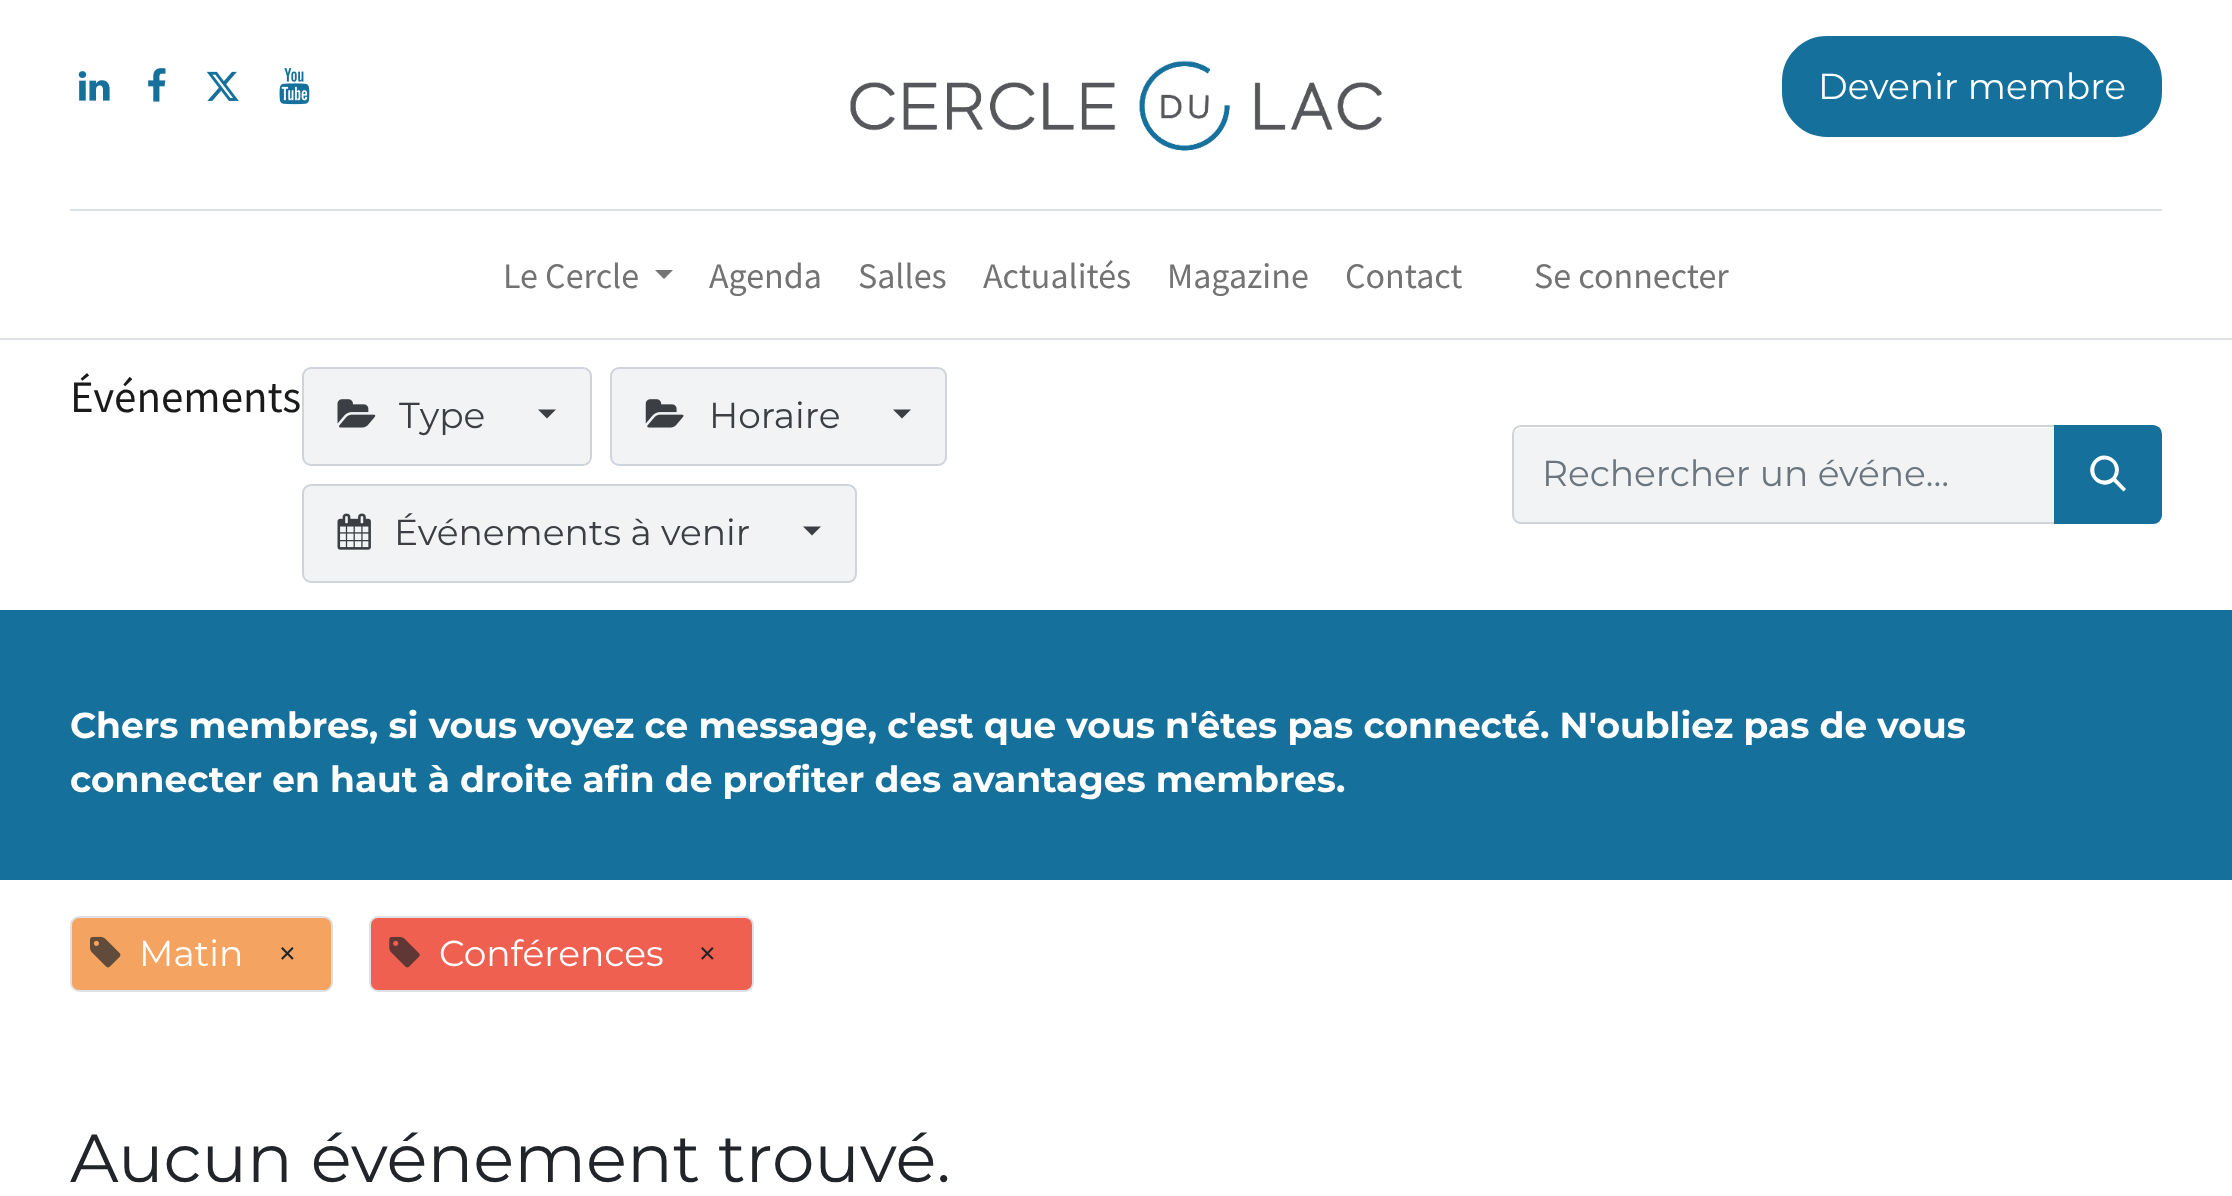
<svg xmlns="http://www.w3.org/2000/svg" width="2232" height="1196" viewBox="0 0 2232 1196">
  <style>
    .t1 { font: 36px Montserrat; fill: #fff; }
    .t2 { font: 36px Source Sans Pro; fill: #737373; }
    .t3 { font: 45px Source Sans Pro; fill: #1a1a1a; }
    .t4 { font: 36px Montserrat; fill: #3b3f44; }
    .t5 { font: 36px Montserrat; fill: #6c757d; }
    .t6 { font: bold 36px Montserrat; fill: #fff; }
    .t7 { font: 36px Montserrat; fill: #212529; }
    .t8 { font: 67.75px Montserrat; fill: #212529; }
  </style>
  <rect width="100%" height="100%" fill="#fff"/>
  <image x="78" y="71" width="32" height="30" href="images/1.png"/>
  <image x="148" y="68" width="18" height="34" href="images/2.png"/>
  <image x="206" y="71" width="33" height="30" href="images/3.png"/>
  <image x="279" y="68" width="31" height="37" href="images/4.png"/>
  <image x="850" y="60" width="532" height="91" href="images/5.png"/>
  <rect x="1783" y="37" width="378" height="99" rx="44" fill="#16709c" stroke="#16709c" stroke-width="2"/>
  <text x="1818" y="99" class="t1">Devenir membre</text>
  <rect x="70" y="209" width="2092" height="2" fill="#dee2e6"/>
  <text x="503" y="288" class="t2">Le Cercle</text>
  <path d="M655 270H673L664 279Z" fill="#737373"/>
  <text x="709" y="288" class="t2">Agenda</text>
  <text x="858" y="288" class="t2">Salles</text>
  <text x="983" y="288" class="t2">Actualités</text>
  <text x="1167" y="288" class="t2">Magazine</text>
  <text x="1345" y="288" class="t2">Contact</text>
  <text x="1534" y="288" class="t2">Se connecter</text>
  <rect x="0" y="338" width="2232" height="2" fill="#dee2e6"/>
  <text x="70" y="412" class="t3">Événements</text>
  <rect x="303" y="368" width="288" height="97" rx="8" fill="#f1f3f4" stroke="#ced4da" stroke-width="2"/>
  <image x="337" y="399" width="39" height="29" href="images/6.png"/>
  <text x="399" y="428" class="t4">Type</text>
  <path d="M538 409.5H556L547 418.5Z" fill="#3b3f44"/>
  <rect x="611" y="368" width="335" height="97" rx="8" fill="#f1f3f4" stroke="#ced4da" stroke-width="2"/>
  <image x="645" y="399" width="39" height="29" href="images/7.png"/>
  <text x="709" y="428" class="t4">Horaire</text>
  <path d="M893 409.5H911L902 418.5Z" fill="#3b3f44"/>
  <rect x="303" y="485" width="553" height="97" rx="8" fill="#f1f3f4" stroke="#ced4da" stroke-width="2"/>
  <image x="337" y="513" width="34" height="37" href="images/8.png"/>
  <text x="394" y="545" class="t4">Événements à venir</text>
  <path d="M803 526.5H821L812 535.5Z" fill="#3b3f44"/>
  <path d="M1521 428H2054V522H1521C1517 522 1514 519 1514 515V435C1514 431 1517 428 1521 428Z" fill="#f1f3f4"/>
  <path d="M1521 426H2056V523H1521C1516.5 523 1513 519.5 1513 515V434C1513 429.5 1516.5 426 1521 426Z" fill="none" stroke="#ced4da" stroke-width="2"/>
  <text x="1542" y="486" class="t5">Rechercher un événe…</text>
  <path d="M2055 426H2153C2157.5 426 2161 429.5 2161 434V515C2161 519.5 2157.5 523 2153 523H2055Z" fill="#16709c" stroke="#16709c" stroke-width="2"/>
  <path d="M2093.5 461C2105 446.5 2127 463.5 2116 478.5L2126 489L2123.5 491.5L2113.5 481.5C2100 492 2083 474 2093.5 461ZM2104.5 459.5C2091 459.5 2091 480.5 2104.5 480.5C2118.5 480.5 2118.5 459.5 2104.5 459.5Z" fill="#fff"/>
  <rect x="0" y="610" width="2232" height="270" fill="#16709c"/>
  <text x="70" y="738" class="t6">Chers membres, si vous voyez ce message, c'est que vous n'êtes pas connecté. N'oubliez pas de vous</text>
  <text x="70" y="792" class="t6">connecter en haut à droite afin de profiter des avantages membres.</text>
  <rect x="71" y="917" width="261" height="74" rx="8" fill="#f4a460" stroke="#dee2e6" stroke-width="2"/>
  <image x="90" y="936" width="31" height="32" href="images/9.png"/>
  <text x="139" y="966" class="t1">Matin</text>
  <text x="277" y="966" class="t7">×</text>
  <rect x="370" y="917" width="383" height="74" rx="8" fill="#f06050" stroke="#dee2e6" stroke-width="2"/>
  <image x="389" y="936" width="31" height="32" href="images/10.png"/>
  <text x="439" y="966" class="t1">Conférences</text>
  <text x="697" y="966" class="t7">×</text>
  <text x="70" y="1182" class="t8">Aucun événement trouvé.</text>
</svg>
